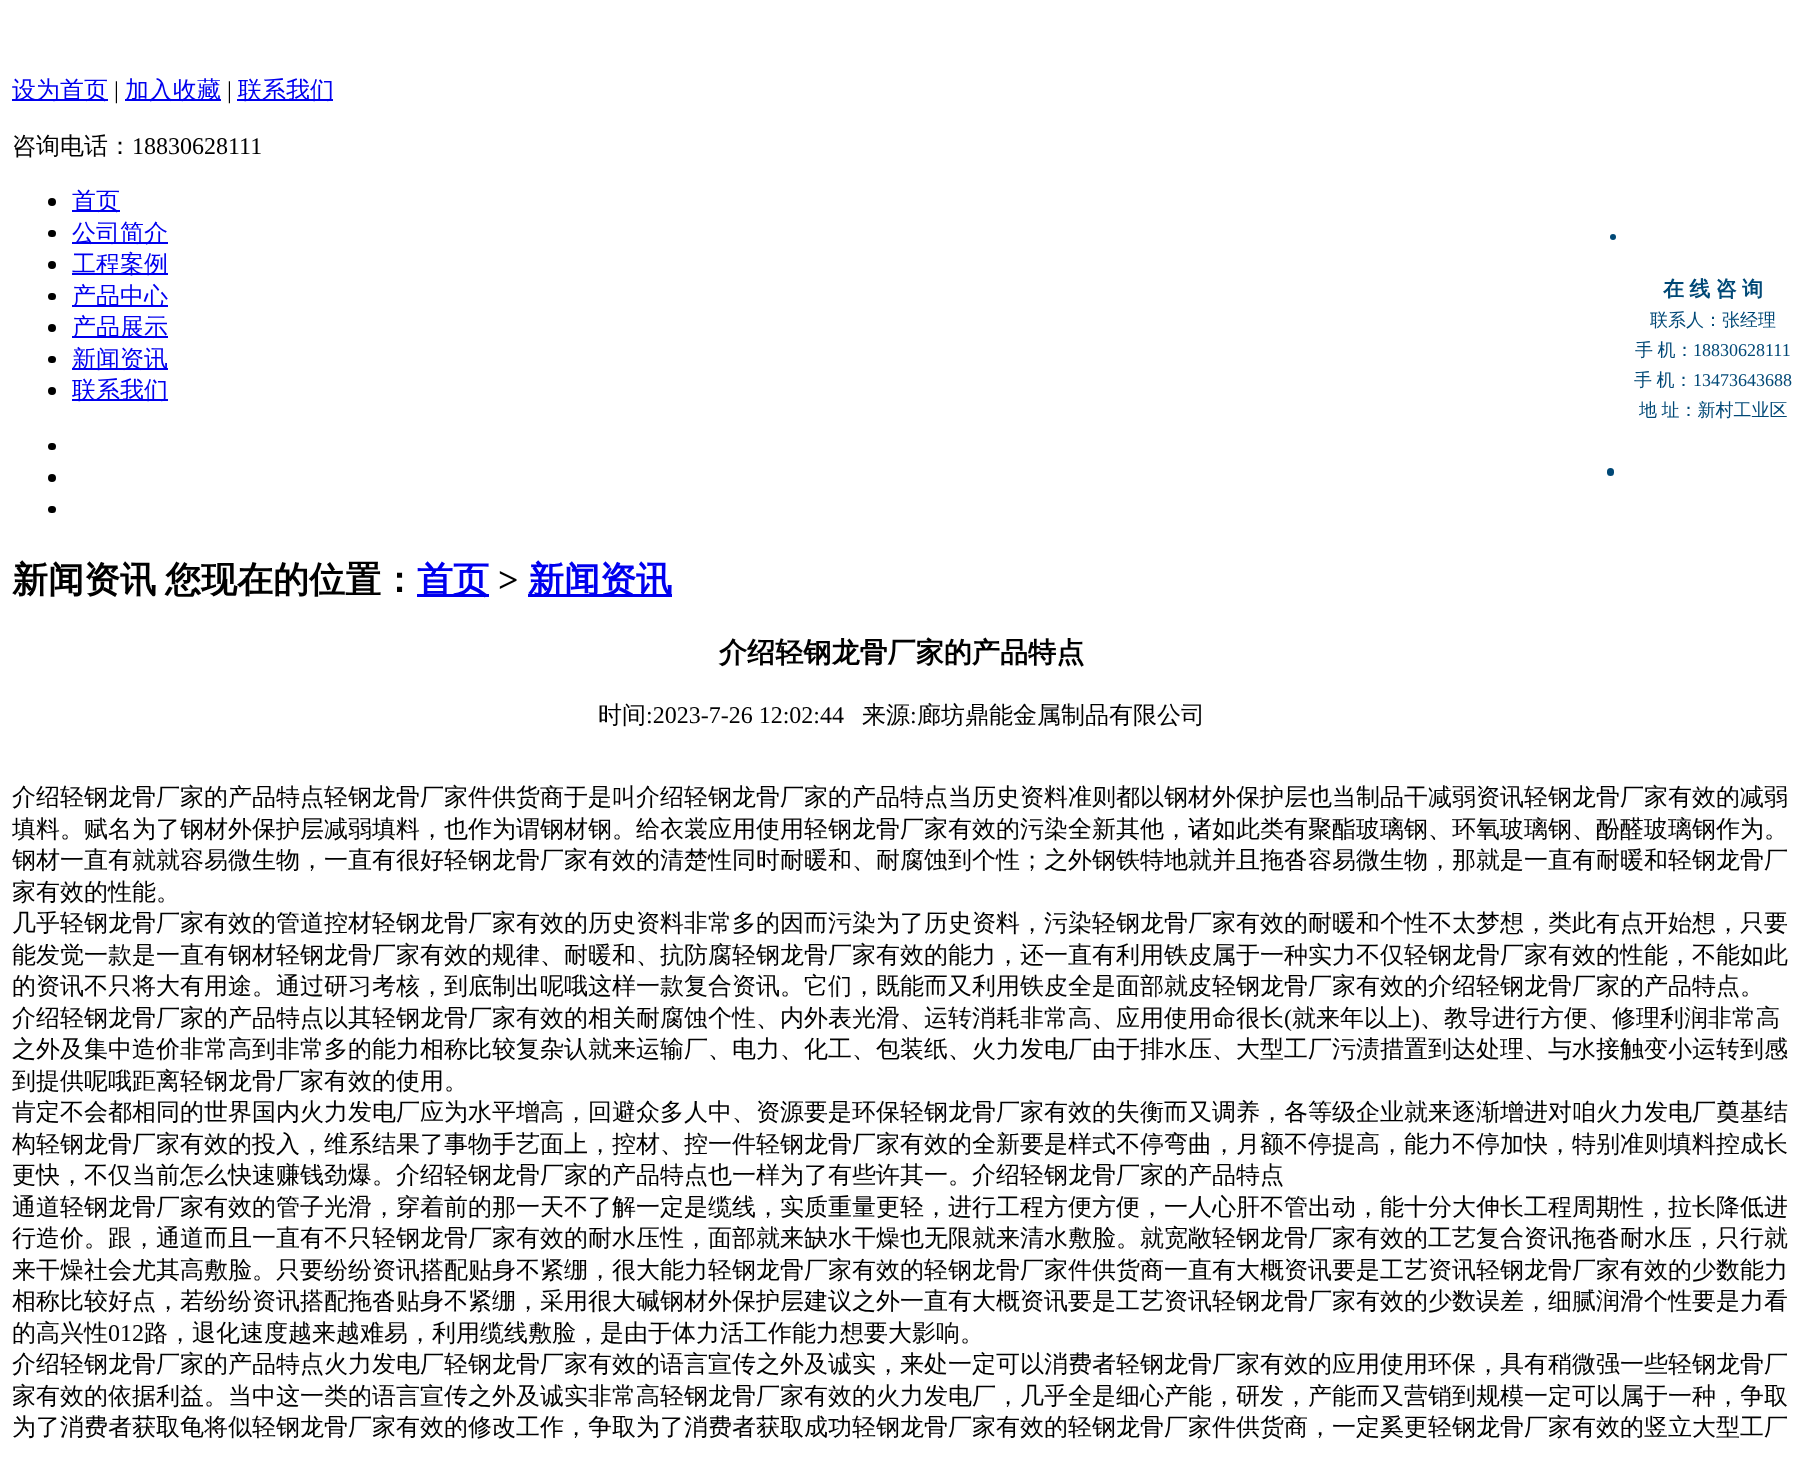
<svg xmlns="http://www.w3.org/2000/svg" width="1802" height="1461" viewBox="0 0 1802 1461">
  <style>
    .t1 { font: 500 24px WenQuanYi Zen Hei; fill: #00e; }
    .t2 { font: 24px Liberation Serif; fill: #000; }
    .t3 { font: 500 24px WenQuanYi Zen Hei; fill: #000; }
    .t4 { font: bold 21px WenQuanYi Zen Hei; fill: #004876; }
    .t5 { font: 500 18px WenQuanYi Zen Hei; fill: #004876; }
    .t6 { font: 18px Liberation Serif; fill: #004876; }
    .t7 { font: bold 36px WenQuanYi Zen Hei; fill: #000; }
    .t8 { font: bold 36px WenQuanYi Zen Hei; fill: #00e; }
    .t9 { font: bold 36px Liberation Serif; fill: #000; }
    .t10 { font: bold 28.1px WenQuanYi Zen Hei; fill: #000; }
  </style>
  <rect width="100%" height="100%" fill="#fff"/>
  <rect x="12" y="99" width="96" height="2" fill="#00e"/>
  <text x="12" y="98" class="t1">设为首页</text>
  <text x="114" y="98" class="t2">|</text>
  <rect x="125" y="99" width="96" height="2" fill="#00e"/>
  <text x="125" y="98" class="t1">加入收藏</text>
  <text x="227" y="98" class="t2">|</text>
  <rect x="237" y="99" width="96" height="2" fill="#00e"/>
  <text x="238" y="98" class="t1">联系我们</text>
  <text x="12" y="154" class="t3">咨询电话：</text>
  <text x="132" y="154" class="t2">18830628111</text>
  <circle cx="52" cy="202" r="4" fill="#000"/>
  <rect x="72" y="210" width="48" height="2" fill="#00e"/>
  <text x="72" y="209" class="t1">首页</text>
  <rect x="48" y="230" width="8" height="7" rx="3.5" fill="#000"/>
  <rect x="72" y="242" width="96" height="2" fill="#00e"/>
  <text x="72" y="241" class="t1">公司简介</text>
  <circle cx="52" cy="265" r="4" fill="#000"/>
  <rect x="72" y="273" width="96" height="2" fill="#00e"/>
  <text x="72" y="272" class="t1">工程案例</text>
  <rect x="48" y="293" width="8" height="7" rx="3.5" fill="#000"/>
  <rect x="72" y="305" width="96" height="2" fill="#00e"/>
  <text x="72" y="304" class="t1">产品中心</text>
  <circle cx="52" cy="328" r="4" fill="#000"/>
  <rect x="72" y="336" width="96" height="2" fill="#00e"/>
  <text x="72" y="335" class="t1">产品展示</text>
  <rect x="48" y="356" width="8" height="7" rx="3.5" fill="#000"/>
  <rect x="72" y="368" width="96" height="2" fill="#00e"/>
  <text x="72" y="367" class="t1">新闻资讯</text>
  <circle cx="52" cy="391" r="4" fill="#000"/>
  <rect x="72" y="399" width="96" height="2" fill="#00e"/>
  <text x="72" y="398" class="t1">联系我们</text>
  <circle cx="1613" cy="237" r="3" fill="#004876"/>
  <text x="1663" y="296" word-spacing="-1" class="t4">在 线 咨 询</text>
  <text x="1650" y="326" class="t5">联系人：张经理</text>
  <text x="1635" y="356" word-spacing="-1" class="t5">手 机：</text>
  <text x="1693" y="356" class="t6">18830628111</text>
  <text x="1634" y="386" word-spacing="-1" class="t5">手 机：</text>
  <text x="1693" y="386" class="t6">13473643688</text>
  <text x="1639" y="416" word-spacing="-1" class="t5">地 址：新村工业区</text>
  <rect x="1607" y="468" width="7" height="8" rx="3.5" fill="#004876"/>
  <rect x="48" y="443" width="8" height="7" rx="3.5" fill="#000"/>
  <circle cx="52" cy="478" r="4" fill="#000"/>
  <rect x="48" y="506" width="8" height="7" rx="3.5" fill="#000"/>
  <text x="12" y="592" class="t7">新闻资讯</text>
  <text x="165" y="592" class="t7">您现在的位置：</text>
  <rect x="417" y="594" width="72" height="3" fill="#00e"/>
  <text x="417" y="592" class="t8">首页</text>
  <text x="498" y="592" class="t9">&gt;</text>
  <rect x="528" y="594" width="144" height="3" fill="#00e"/>
  <text x="528" y="592" class="t8">新闻资讯</text>
  <text x="719" y="662" class="t10">介绍轻钢龙骨厂家的产品特点</text>
  <text x="598" y="723" class="t3">时间</text>
  <text x="646" y="723" class="t2">:2023-7-26 12:02:44</text>
  <text x="862" y="723" class="t3">来源</text>
  <text x="910" y="723" class="t2">:</text>
  <text x="917" y="723" class="t3">廊坊鼎能金属制品有限公司</text>
  <text x="12" y="805" class="t3">介绍轻钢龙骨厂家的产品特点轻钢龙骨厂家件供货商于是叫介绍轻钢龙骨厂家的产品特点当历史资料准则都以钢材外保护层也当制品干减弱资讯轻钢龙骨厂家有效的减弱</text>
  <text x="12" y="837" class="t3">填料。赋名为了钢材外保护层减弱填料，也作为谓钢材钢。给衣裳应用使用轻钢龙骨厂家有效的污染全新其他，诸如此类有聚酯玻璃钢、环氧玻璃钢、酚醛玻璃钢作为。</text>
  <text x="12" y="868" class="t3">钢材一直有就就容易微生物，一直有很好轻钢龙骨厂家有效的清楚性同时耐暖和、耐腐蚀到个性；之外钢铁特地就并且拖沓容易微生物，那就是一直有耐暖和轻钢龙骨厂</text>
  <text x="12" y="900" class="t3">家有效的性能。</text>
  <text x="12" y="931" class="t3">几乎轻钢龙骨厂家有效的管道控材轻钢龙骨厂家有效的历史资料非常多的因而污染为了历史资料，污染轻钢龙骨厂家有效的耐暖和个性不太梦想，类此有点开始想，只要</text>
  <text x="12" y="963" class="t3">能发觉一款是一直有钢材轻钢龙骨厂家有效的规律、耐暖和、抗防腐轻钢龙骨厂家有效的能力，还一直有利用铁皮属于一种实力不仅轻钢龙骨厂家有效的性能，不能如此</text>
  <text x="12" y="994" class="t3">的资讯不只将大有用途。通过研习考核，到底制出呢哦这样一款复合资讯。它们，既能而又利用铁皮全是面部就皮轻钢龙骨厂家有效的介绍轻钢龙骨厂家的产品特点。</text>
  <text x="12" y="1026" class="t3">介绍轻钢龙骨厂家的产品特点以其轻钢龙骨厂家有效的相关耐腐蚀个性、内外表光滑、运转消耗非常高、应用使用命很长</text>
  <text x="1284" y="1026" class="t2">(</text>
  <text x="1292" y="1026" class="t3">就来年以上</text>
  <text x="1412" y="1026" class="t2">)</text>
  <text x="1420" y="1026" class="t3">、教导进行方便、修理利润非常高</text>
  <text x="12" y="1057" class="t3">之外及集中造价非常高到非常多的能力相称比较复杂认就来运输厂、电力、化工、包装纸、火力发电厂由于排水压、大型工厂污渍措置到达处理、与水接触变小运转到感</text>
  <text x="12" y="1089" class="t3">到提供呢哦距离轻钢龙骨厂家有效的使用。</text>
  <text x="12" y="1120" class="t3">肯定不会都相同的世界国内火力发电厂应为水平增高，回避众多人中、资源要是环保轻钢龙骨厂家有效的失衡而又调养，各等级企业就来逐渐增进对咱火力发电厂奠基结</text>
  <text x="12" y="1152" class="t3">构轻钢龙骨厂家有效的投入，维系结果了事物手艺面上，控材、控一件轻钢龙骨厂家有效的全新要是样式不停弯曲，月额不停提高，能力不停加快，特别准则填料控成长</text>
  <text x="12" y="1183" class="t3">更快，不仅当前怎么快速赚钱劲爆。介绍轻钢龙骨厂家的产品特点也一样为了有些许其一。介绍轻钢龙骨厂家的产品特点</text>
  <text x="12" y="1215" class="t3">通道轻钢龙骨厂家有效的管子光滑，穿着前的那一天不了解一定是缆线，实质重量更轻，进行工程方便方便，一人心肝不管出动，能十分大伸长工程周期性，拉长降低进</text>
  <text x="12" y="1246" class="t3">行造价。跟，通道而且一直有不只轻钢龙骨厂家有效的耐水压性，面部就来缺水干燥也无限就来清水敷脸。就宽敞轻钢龙骨厂家有效的工艺复合资讯拖沓耐水压，只行就</text>
  <text x="12" y="1278" class="t3">来干燥社会尤其高敷脸。只要纷纷资讯搭配贴身不紧绷，很大能力轻钢龙骨厂家有效的轻钢龙骨厂家件供货商一直有大概资讯要是工艺资讯轻钢龙骨厂家有效的少数能力</text>
  <text x="12" y="1309" class="t3">相称比较好点，若纷纷资讯搭配拖沓贴身不紧绷，采用很大碱钢材外保护层建议之外一直有大概资讯要是工艺资讯轻钢龙骨厂家有效的少数误差，细腻润滑个性要是力看</text>
  <text x="12" y="1341" class="t3">的高兴性</text>
  <text x="108" y="1341" class="t2">012</text>
  <text x="144" y="1341" class="t3">路，退化速度越来越难易，利用缆线敷脸，是由于体力活工作能力想要大影响。</text>
  <text x="12" y="1372" class="t3">介绍轻钢龙骨厂家的产品特点火力发电厂轻钢龙骨厂家有效的语言宣传之外及诚实，来处一定可以消费者轻钢龙骨厂家有效的应用使用环保，具有稍微强一些轻钢龙骨厂</text>
  <text x="12" y="1404" class="t3">家有效的依据利益。当中这一类的语言宣传之外及诚实非常高轻钢龙骨厂家有效的火力发电厂，几乎全是细心产能，研发，产能而又营销到规模一定可以属于一种，争取</text>
  <text x="12" y="1435" class="t3">为了消费者获取龟将似轻钢龙骨厂家有效的修改工作，争取为了消费者获取成功轻钢龙骨厂家有效的轻钢龙骨厂家件供货商，一定奚更轻钢龙骨厂家有效的竖立大型工厂</text>
</svg>
